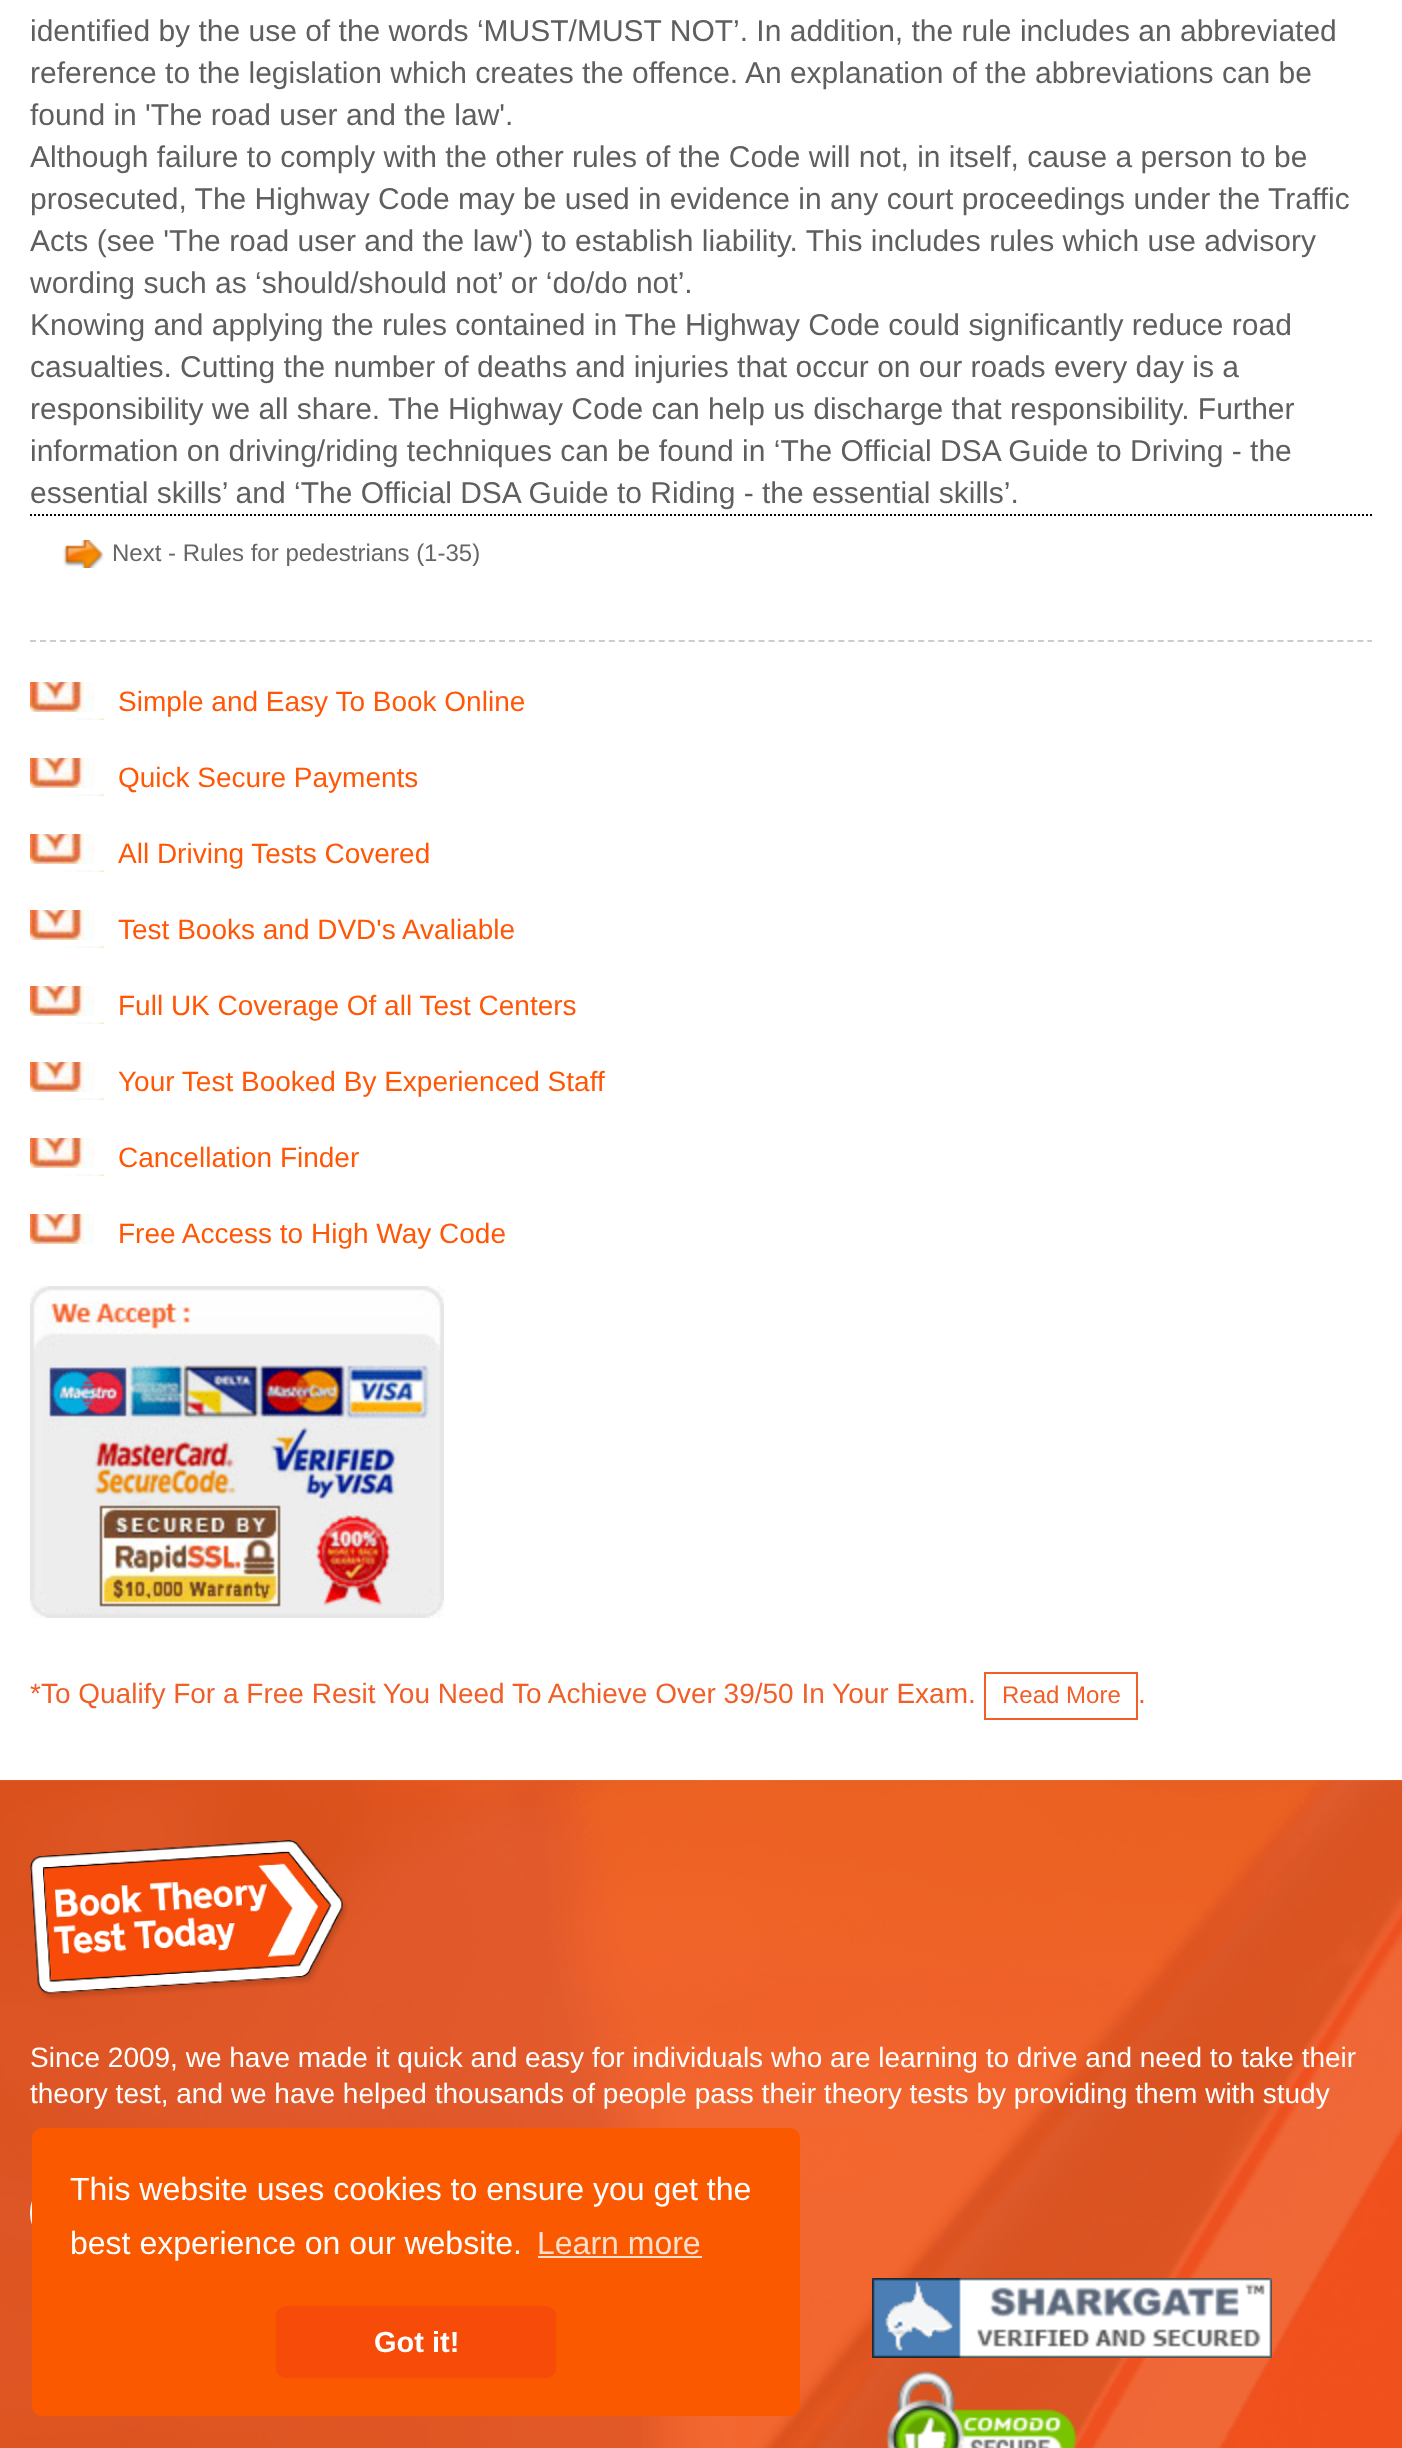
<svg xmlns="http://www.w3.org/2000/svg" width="1402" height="2448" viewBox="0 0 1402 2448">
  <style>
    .t1 { font: 30px Liberation Sans; fill: #5f5f5f; }
    .t2 { font: 24px Liberation Sans; fill: #666; }
    .t3 { font: 28px Liberation Sans; fill: #ff5706; }
    .t4 { font: 28px Liberation Sans; fill: #f05f28; }
    .t5 { font: 24px Liberation Sans; fill: #f05f28; }
    .t6 { font: 28px Liberation Sans; fill: #fff; }
    .t7 { font: 32px Liberation Sans; fill: #fff; }
    .t8 { font: 32px Liberation Sans; fill: #fedecc; }
    .t9 { font: bold 29px Liberation Sans; fill: #fff; }
  </style>
  <rect width="100%" height="100%" fill="#fff"/>
  <text x="30" y="41" class="t1">identified by the use of the words ‘MUST/MUST NOT’. In addition, the rule includes an abbreviated</text>
  <text x="30" y="83" class="t1">reference to the legislation which creates the offence. An explanation of the abbreviations can be</text>
  <text x="30" y="125" class="t1">found in 'The road user and the law'.</text>
  <text x="30" y="167" class="t1">Although failure to comply with the other rules of the Code will not, in itself, cause a person to be</text>
  <text x="30" y="209" class="t1">prosecuted, The Highway Code may be used in evidence in any court proceedings under the Traffic</text>
  <text x="30" y="251" class="t1">Acts (see 'The road user and the law') to establish liability. This includes rules which use advisory</text>
  <text x="30" y="293" class="t1">wording such as ‘should/should not’ or ‘do/do not’.</text>
  <text x="30" y="335" class="t1">Knowing and applying the rules contained in The Highway Code could significantly reduce road</text>
  <text x="30" y="377" class="t1">casualties. Cutting the number of deaths and injuries that occur on our roads every day is a</text>
  <text x="30" y="419" class="t1">responsibility we all share. The Highway Code can help us discharge that responsibility. Further</text>
  <text x="30" y="461" class="t1">information on driving/riding techniques can be found in ‘The Official DSA Guide to Driving - the</text>
  <text x="30" y="503" class="t1">essential skills’ and ‘The Official DSA Guide to Riding - the essential skills’.</text>
  <path d="M30 515H1372" fill="none" stroke="#000" stroke-width="2" stroke-dasharray="2 2"/>
  <image x="63" y="540" width="41" height="28" href="images/1.png"/>
  <text x="112" y="561" class="t2">Next - Rules for pedestrians (1-35)</text>
  <path d="M30 641H1372" fill="none" stroke="#ccc" stroke-width="2" stroke-dasharray="6 3.98"/>
  <image x="30" y="682" width="74" height="38" href="images/2.png"/>
  <text x="118" y="711" class="t3">Simple and Easy To Book Online</text>
  <image x="30" y="758" width="74" height="38" href="images/2.png"/>
  <text x="118" y="787" class="t3">Quick Secure Payments</text>
  <image x="30" y="834" width="74" height="38" href="images/2.png"/>
  <text x="118" y="863" class="t3">All Driving Tests Covered</text>
  <image x="30" y="910" width="74" height="38" href="images/2.png"/>
  <text x="118" y="939" class="t3">Test Books and DVD's Avaliable</text>
  <image x="30" y="986" width="74" height="38" href="images/2.png"/>
  <text x="118" y="1015" class="t3">Full UK Coverage Of all Test Centers</text>
  <image x="30" y="1062" width="74" height="38" href="images/2.png"/>
  <text x="118" y="1091" class="t3">Your Test Booked By Experienced Staff</text>
  <image x="30" y="1138" width="74" height="38" href="images/2.png"/>
  <text x="118" y="1167" class="t3">Cancellation Finder</text>
  <image x="30" y="1214" width="64" height="30" href="images/3.png"/>
  <text x="118" y="1243" class="t3">Free Access to High Way Code</text>
  <image x="30" y="1286" width="414" height="332" href="images/4.png"/>
  <text x="30" y="1703" class="t4">*To Qualify For a Free Resit You Need To Achieve Over 39/50 In Your Exam.</text>
  <rect x="985" y="1673" width="152" height="46" fill="none" stroke="#f05f28" stroke-width="2"/>
  <text x="1002" y="1703" class="t5">Read More</text>
  <text x="1138" y="1703" class="t4">.</text>
  <image x="0" y="1780" width="1402" height="668" href="images/5.png"/>
  <image x="30" y="1840" width="318" height="160" href="images/6.png"/>
  <text x="30" y="2067" class="t6">Since 2009, we have made it quick and easy for individuals who are learning to drive and need to take their</text>
  <text x="30" y="2103" class="t6">theory test, and we have helped thousands of people pass their theory tests by providing them with study</text>
  <rect x="32" y="2180" width="296" height="66" rx="33" fill="none" stroke="#fff" stroke-width="4"/>
  <image x="872" y="2278" width="400" height="80" href="images/7.png"/>
  <image x="885" y="2371" width="192" height="77" href="images/8.png"/>
  <rect x="32" y="2128" width="768" height="288" rx="10" fill="#fa5900"/>
  <text x="70" y="2200" class="t7">This website uses cookies to ensure you get the</text>
  <text x="70" y="2254" class="t7">best experience on our website.</text>
  <text x="537" y="2254" class="t8">Learn more</text>
  <rect x="538" y="2256" width="164" height="2" fill="#fedecc"/>
  <rect x="276" y="2306" width="280" height="72" rx="10" fill="#f64b09"/>
  <text x="374" y="2352" class="t9">Got it!</text>
</svg>
